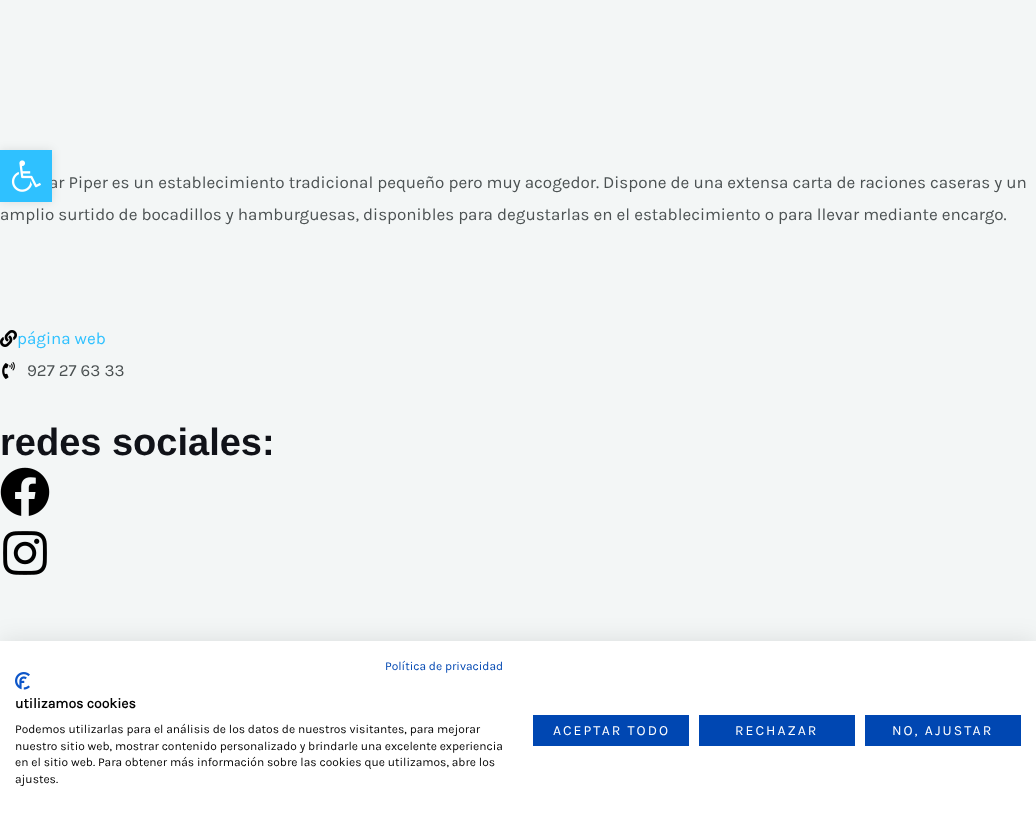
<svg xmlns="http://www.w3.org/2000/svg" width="1036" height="815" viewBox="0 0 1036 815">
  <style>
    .t1 { font: 17px Karla; fill: #4c5253; }
    .t2 { font: 17px Karla; fill: #2fc1ff; }
    .t3 { font: bold 38px Liberation Sans; fill: #101218; }
    .t4 { font: 12px Karla; fill: #0047b2; }
    .t5 { font: bold 14px Karla; fill: #000; }
    .t6 { font: 12px Karla; fill: #000; }
    .t7 { font: 14px Karla; letter-spacing: 2px; fill: #fff; }
  </style>
  <rect width="100%" height="100%" fill="#f3f6f6"/>
  <rect x="0" y="150" width="52" height="52" fill="#0000001a" filter="blur(5px)"/>
  <text x="49" y="188" class="t1">ar Piper es un establecimiento tradicional pequeño pero muy acogedor. Dispone de una extensa carta de raciones caseras y un</text>
  <rect x="0" y="150" width="52" height="52" fill="#2fc1ff"/>
  <image x="11" y="160" width="30" height="32" href="images/1.png"/>
  <text x="0" y="220" class="t1">amplio surtido de bocadillos y hamburguesas, disponibles para degustarlas en el establecimiento o para llevar mediante encargo.</text>
  <image x="0" y="330" width="17" height="17" href="images/2.png"/>
  <text x="17" y="344" class="t2">página web</text>
  <image x="2" y="362" width="13" height="17" href="images/3.png"/>
  <text x="27" y="376" class="t1">927 27 63 33</text>
  <text x="0" y="455" class="t3">redes sociales:</text>
  <image x="0" y="467" width="50" height="49" href="images/4.png"/>
  <image x="3" y="531" width="44" height="44" href="images/5.png"/>
  <rect x="0" y="641" width="1036" height="174" fill="#0000001a" filter="blur(12px)"/>
  <rect x="0" y="641" width="1036" height="174" fill="#fff"/>
  <text x="385" y="670" class="t4">Política de privacidad</text>
  <image x="15" y="672" width="15" height="18" href="images/6.png"/>
  <text x="15" y="708" class="t5">utilizamos cookies</text>
  <text x="15" y="733" class="t6">Podemos utilizarlas para el análisis de los datos de nuestros visitantes, para mejorar</text>
  <text x="15" y="750" class="t6">nuestro sitio web, mostrar contenido personalizado y brindarle una excelente experiencia</text>
  <text x="15" y="766" class="t6">en el sitio web. Para obtener más información sobre las cookies que utilizamos, abre los</text>
  <text x="15" y="783" class="t6">ajustes.</text>
  <rect x="533" y="715" width="156" height="31" fill="#0047b2"/>
  <text x="553" y="735" class="t7">ACEPTAR TODO</text>
  <rect x="699" y="715" width="156" height="31" fill="#0047b2"/>
  <text x="735" y="735" class="t7">RECHAZAR</text>
  <rect x="865" y="715" width="156" height="31" fill="#0047b2"/>
  <text x="892" y="735" class="t7">NO, AJUSTAR</text>
</svg>
